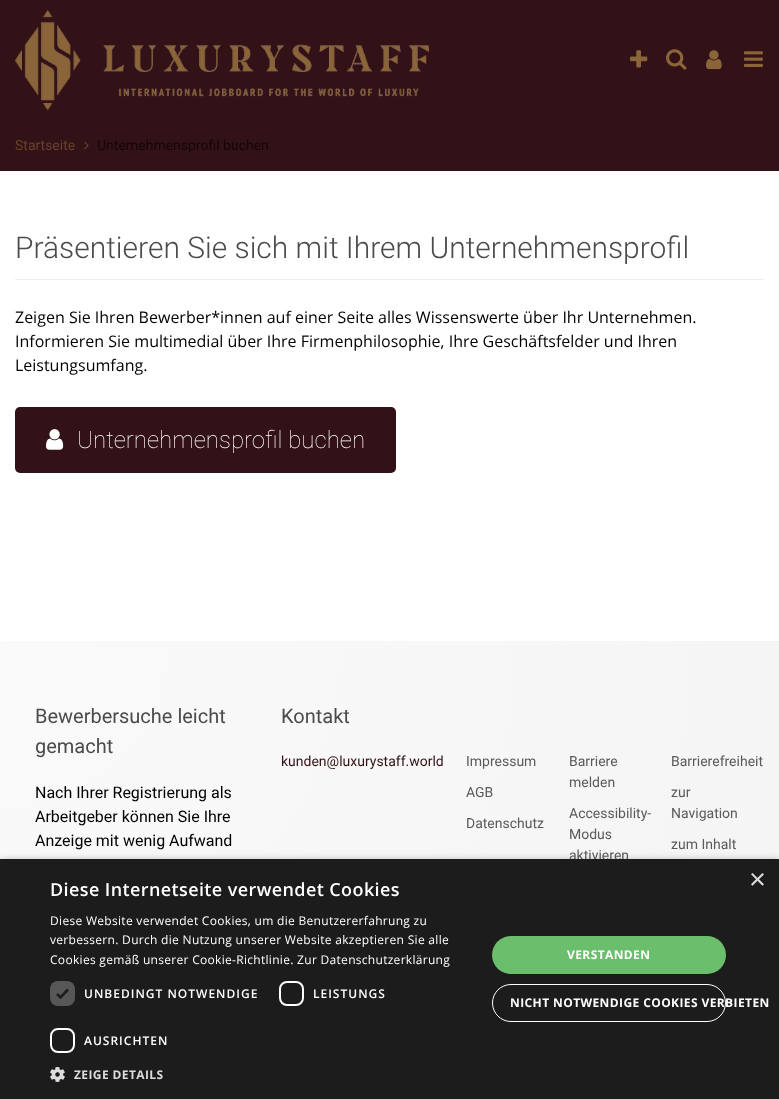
<svg xmlns="http://www.w3.org/2000/svg" width="779" height="1099" viewBox="0 0 779 1099">
  <style>
    .t1 { font: 14px Roboto; fill: #67432b; }
    .t2 { font: 14px Roboto; fill: #140709; }
    .t3 { font: 300 30px Roboto; fill: #4b4b4b; }
    .t4 { font: 16px Open Sans; fill: #000; }
    .t5 { font: 100 24px Roboto; fill: #fff; }
    .t6 { font: 20px Roboto; fill: #4b4b4b; }
    .t7 { font: 16px Roboto; fill: #000; }
    .t8 { font: 14px Roboto; fill: #321117; }
    .t9 { font: 14px Roboto; fill: #5a5a5a; }
    .t10 { font: 29px Liberation Sans; fill: #ddd; }
    .t11 { font: 600 18px Open Sans; letter-spacing: 0.4px; fill: #fff; }
    .t12 { font: 12px Open Sans; letter-spacing: 0.3px; fill: #fff; }
    .t13 { font: 600 12px Open Sans; letter-spacing: 1px; fill: #fff; }
    .t14 { font: bold 12px Open Sans; letter-spacing: 0.4px; fill: #ddd; }
    .t15 { font: bold 12px Open Sans; letter-spacing: 0.4px; fill: #fff; }
  </style>
  <defs>
    <radialGradient id="g1" gradientUnits="userSpaceOnUse" cx="0" cy="641" r="868"><stop offset="0" stop-color="#fafafa"/><stop offset="0.9" stop-color="#f5f5f5"/></radialGradient>
  </defs>
  <rect width="100%" height="100%" fill="#fff"/>
  <rect x="0" y="0" width="779" height="171" fill="#321117"/>
  <image x="15" y="10" width="414" height="100" href="images/1.png"/>
  <image x="630" y="50" width="18" height="18" href="images/2.png"/>
  <image x="666" y="49" width="21" height="21" href="images/3.png"/>
  <image x="706" y="50" width="16" height="20" href="images/4.png"/>
  <image x="744" y="51" width="19" height="16" href="images/5.png"/>
  <text x="15" y="150" class="t1">Startseite</text>
  <image x="84" y="141" width="5" height="9" href="images/6.png"/>
  <text x="97" y="150" class="t2">Unternehmensprofil buchen</text>
  <rect x="15" y="279" width="749" height="1" fill="#eee"/>
  <text x="15" y="258" class="t3">Präsentieren Sie sich mit Ihrem Unternehmensprofil</text>
  <text x="15" y="323" class="t4">Zeigen Sie Ihren Bewerber*innen auf einer Seite alles Wissenswerte über Ihr Unternehmen.</text>
  <text x="15" y="347" class="t4">Informieren Sie multimedial über Ihre Firmenphilosophie, Ihre Geschäftsfelder und Ihren</text>
  <text x="15" y="371" class="t4">Leistungsumfang.</text>
  <rect x="15" y="407" width="381" height="66" rx="5" fill="#321117"/>
  <image x="46" y="429" width="18" height="21" href="images/7.png"/>
  <text x="77" y="448" class="t5">Unternehmensprofil buchen</text>
  <rect x="0" y="641" width="779" height="218" fill="url(#g1)"/>
  <text x="35" y="723" class="t6">Bewerbersuche leicht</text>
  <text x="35" y="753" class="t6">gemacht</text>
  <text x="35" y="798" class="t7">Nach Ihrer Registrierung als</text>
  <text x="35" y="822" class="t7">Arbeitgeber können Sie Ihre</text>
  <text x="35" y="846" class="t7">Anzeige mit wenig Aufwand</text>
  <text x="281" y="723" class="t6">Kontakt</text>
  <text x="281" y="766" class="t8">kunden@luxurystaff.world</text>
  <text x="466" y="766" class="t9">Impressum</text>
  <text x="466" y="797" class="t9">AGB</text>
  <text x="466" y="828" class="t9">Datenschutz</text>
  <text x="569" y="766" class="t9">Barriere</text>
  <text x="569" y="787" class="t9">melden</text>
  <text x="569" y="818" class="t9">Accessibility-</text>
  <text x="569" y="839" class="t9">Modus</text>
  <text x="569" y="860" class="t9">aktivieren</text>
  <text x="671" y="766" class="t9">Barrierefreiheit</text>
  <text x="671" y="797" class="t9">zur</text>
  <text x="671" y="818" class="t9">Navigation</text>
  <text x="671" y="849" class="t9">zum Inhalt</text>
  <rect x="1" y="861" width="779" height="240" fill="#00000059" filter="blur(4px)"/>
  <rect x="0" y="859" width="779" height="240" fill="#1c1c1c"/>
  <text x="749" y="889" class="t10">×</text>
  <text x="50" y="896" class="t11">Diese Internetseite verwendet Cookies</text>
  <text x="50" y="925" class="t12">Diese Website verwendet Cookies, um die Benutzererfahrung zu</text>
  <text x="50" y="944" class="t12">verbessern. Durch die Nutzung unserer Website akzeptieren Sie alle</text>
  <text x="50" y="964" class="t12">Cookies gemäß unserer Cookie-Richtlinie. Zur Datenschutzerklärung</text>
  <rect x="50" y="981" width="25" height="25" rx="8" fill="#575757"/>
  <path d="M57 994L60.5 997.5L68 989.5" fill="none" stroke="#1c1c1c" stroke-width="2.6"/>
  <text x="84" y="998" class="t13">UNBEDINGT NOTWENDIGE</text>
  <rect x="280" y="982" width="23" height="23" rx="7" fill="none" stroke="#fff" stroke-width="2"/>
  <text x="313" y="998" class="t13">LEISTUNGS</text>
  <rect x="51" y="1029" width="23" height="23" rx="7" fill="none" stroke="#fff" stroke-width="2"/>
  <text x="84" y="1045" class="t13">AUSRICHTEN</text>
  <image x="50" y="1067" width="15" height="15" href="images/8.png"/>
  <text x="74" y="1079" class="t14">ZEIGE DETAILS</text>
  <rect x="492" y="936" width="234" height="38" rx="19" fill="#6bbe6b"/>
  <text x="567" y="959" class="t15">VERSTANDEN</text>
  <rect x="492.5" y="984.5" width="233" height="37" rx="18.5" fill="none" stroke="#fff"/>
  <text x="510" y="1007" class="t15">NICHT NOTWENDIGE COOKIES VERBIETEN</text>
</svg>
